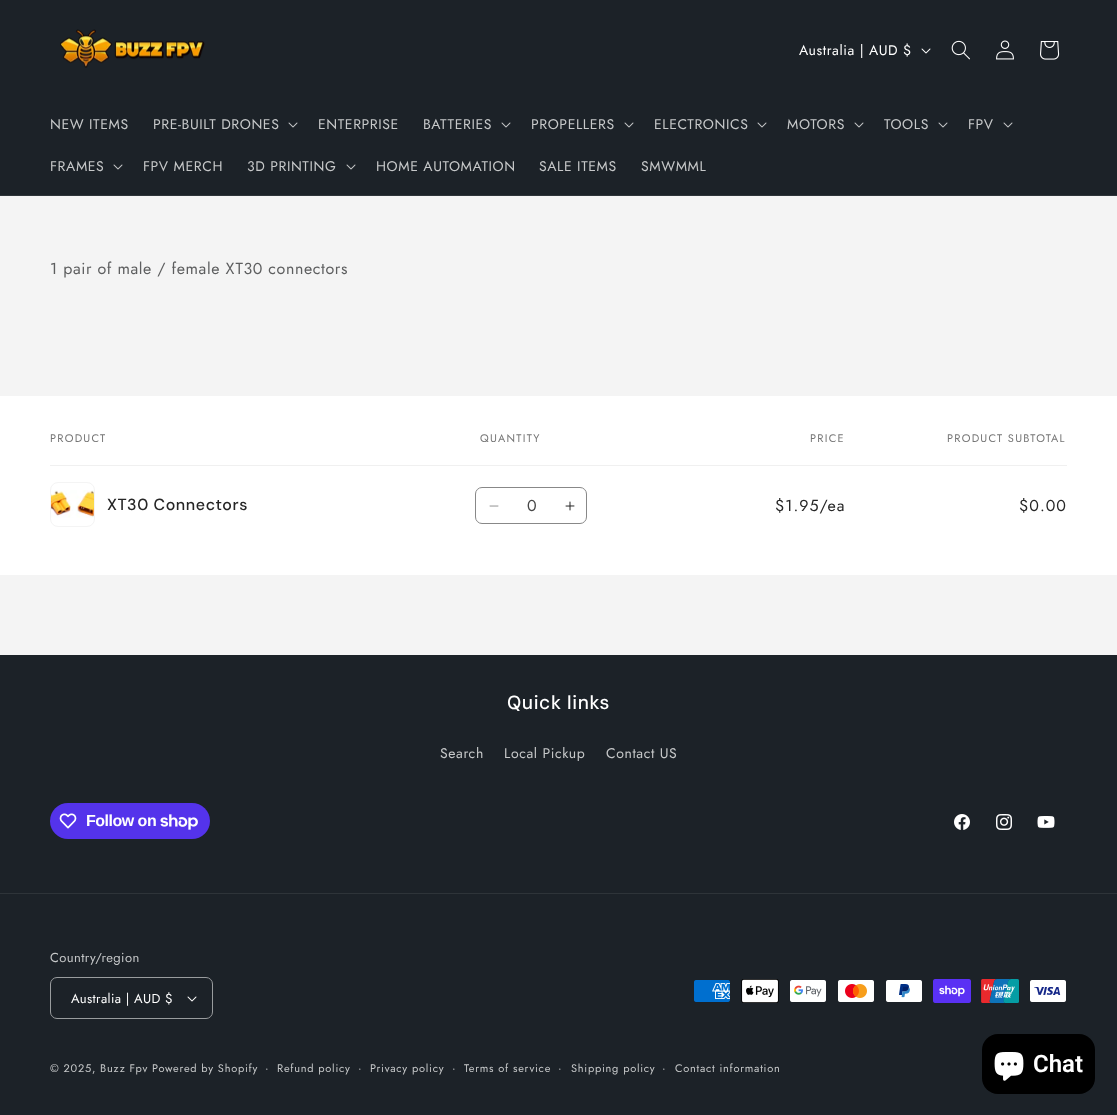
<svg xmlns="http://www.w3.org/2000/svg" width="1117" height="1115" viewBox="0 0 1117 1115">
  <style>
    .t1 { font: 14px Jost; letter-spacing: 0.6px; fill: #fff; }
    .t2 { font: 14px Jost; letter-spacing: 0.6px; fill: #c6c8c9; }
    .t3 { font: 16px Jost; letter-spacing: 0.6px; fill: #5d5e5f; }
    .t4 { font: 11px Jost; letter-spacing: 1.25px; fill: #757575; }
    .t5 { font: 500 16px DM Sans; letter-spacing: 0.6px; fill: #262626; }
    .t6 { font: 16px Jost; fill: #474747; }
    .t7 { font: 16px Jost; letter-spacing: 1px; fill: #262626; }
    .t8 { font: 500 19px 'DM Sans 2'; letter-spacing: 0.6px; fill: #fff; }
    .t9 { font: bold 16px Liberation Sans; letter-spacing: -0.5px; fill: #fff; }
    .t10 { font: 13px Jost; letter-spacing: 0.4px; fill: #c6c8c9; }
    .t11 { font: 13px Jost; letter-spacing: 0.4px; fill: #fff; }
    .t12 { font: 11px Jost; letter-spacing: 0.75px; fill: #c6c8c9; }
    .t13 { font: 12px Jost; letter-spacing: 0.75px; fill: #c6c8c9; }
    .t14 { font: 600 24px Roboto; fill: #fff; }
  </style>
  <rect width="100%" height="100%" fill="#f4f4f4"/>
  <rect x="0" y="0" width="1117" height="195" fill="#1c2228"/>
  <rect x="0" y="195" width="1117" height="1" fill="#2e3439"/>
  <image x="60" y="29" width="145" height="39" href="images/1.png"/>
  <text x="799" y="55" class="t1">Australia | AUD $</text>
  <image x="921" y="48" width="10" height="6" href="images/2.png"/>
  <image x="951" y="40" width="19" height="20" href="images/3.png"/>
  <image x="996" y="40" width="18" height="20" href="images/4.png"/>
  <image x="1040" y="41" width="20" height="19" href="images/5.png"/>
  <text x="50" y="129" class="t2">NEW ITEMS</text>
  <text x="153" y="129" class="t2">PRE-BUILT DRONES</text>
  <image x="288" y="122" width="10" height="6" href="images/6.png"/>
  <text x="318" y="129" class="t2">ENTERPRISE</text>
  <text x="423" y="129" class="t2">BATTERIES</text>
  <image x="501" y="122" width="10" height="6" href="images/6.png"/>
  <text x="531" y="129" class="t2">PROPELLERS</text>
  <image x="624" y="122" width="10" height="6" href="images/6.png"/>
  <text x="654" y="129" class="t2">ELECTRONICS</text>
  <image x="757" y="122" width="10" height="6" href="images/6.png"/>
  <text x="787" y="129" class="t2">MOTORS</text>
  <image x="854" y="122" width="10" height="6" href="images/6.png"/>
  <text x="884" y="129" class="t2">TOOLS</text>
  <image x="938" y="122" width="10" height="6" href="images/6.png"/>
  <text x="968" y="129" class="t2">FPV</text>
  <image x="1003" y="122" width="10" height="6" href="images/6.png"/>
  <text x="50" y="171" class="t2">FRAMES</text>
  <image x="113" y="164" width="10" height="6" href="images/6.png"/>
  <text x="143" y="171" class="t2">FPV MERCH</text>
  <text x="247" y="171" class="t2">3D PRINTING</text>
  <image x="346" y="164" width="10" height="6" href="images/6.png"/>
  <text x="376" y="171" class="t2">HOME AUTOMATION</text>
  <text x="539" y="171" class="t2">SALE ITEMS</text>
  <text x="641" y="171" class="t2">SMWMML</text>
  <text x="50" y="274" class="t3">1 pair of male / female XT30 connectors</text>
  <rect x="0" y="396" width="1117" height="179" fill="#fff"/>
  <rect x="50" y="465" width="1017" height="1" fill="#f0f0f0"/>
  <text x="50" y="442" class="t4">PRODUCT</text>
  <text x="480" y="442" class="t4">QUANTITY</text>
  <text x="810" y="442" class="t4">PRICE</text>
  <text x="947" y="442" class="t4">PRODUCT SUBTOTAL</text>
  <rect x="50.5" y="482.5" width="44" height="44" rx="7.5" fill="none" stroke="#f4f4f4"/>
  <image x="51" y="490" width="43" height="28" href="images/7.png"/>
  <text x="107" y="510" class="t5">XT30 Connectors</text>
  <image x="489" y="505" width="10" height="2" href="images/8.png"/>
  <image x="565" y="501" width="10" height="10" href="images/9.png"/>
  <rect x="475.5" y="487.5" width="111" height="36" rx="6.5" fill="none" stroke="#888"/>
  <text x="527" y="511" class="t6">0</text>
  <text x="775" y="511" class="t7">$1.95/ea</text>
  <text x="1019" y="511" class="t7">$0.00</text>
  <rect x="0" y="655" width="1117" height="460" fill="#1c2228"/>
  <text x="507" y="709" class="t8">Quick links</text>
  <text x="440" y="758" class="t2">Search</text>
  <text x="504" y="758" class="t2">Local Pickup</text>
  <text x="606" y="758" class="t2">Contact US</text>
  <rect x="50" y="803" width="160" height="36" rx="18" fill="#5433eb"/>
  <image x="59" y="813" width="18" height="16" href="images/10.png"/>
  <text x="86" y="826" class="t9">Follow on</text>
  <image x="160" y="814" width="38" height="16" href="images/11.png"/>
  <image x="954" y="814" width="16" height="16" href="images/12.png"/>
  <image x="996" y="814" width="16" height="16" href="images/13.png"/>
  <image x="1037" y="816" width="18" height="12" href="images/14.png"/>
  <rect x="0" y="893" width="1117" height="1" fill="#2e3439"/>
  <text x="50" y="962" class="t10">Country/region</text>
  <image x="187" y="996" width="10" height="6" href="images/2.png"/>
  <rect x="50.5" y="977.5" width="162" height="41" rx="6.5" fill="none" stroke="#999c9e"/>
  <text x="71" y="1003" class="t11">Australia | AUD $</text>
  <image x="694" y="980" width="36" height="22" href="images/15.png"/>
  <image x="741" y="979" width="38" height="24" href="images/16.png"/>
  <image x="790" y="980" width="36" height="22" href="images/17.png"/>
  <image x="838" y="980" width="36" height="22" href="images/18.png"/>
  <image x="886" y="980" width="36" height="22" href="images/19.png"/>
  <image x="933" y="979" width="38" height="24" href="images/20.png"/>
  <image x="981" y="979" width="38" height="24" href="images/21.png"/>
  <image x="1030" y="980" width="36" height="22" href="images/22.png"/>
  <text x="50" y="1072" class="t12">© 2025, Buzz Fpv</text>
  <text x="152" y="1072" class="t12">Powered by Shopify</text>
  <text x="265" y="1072" class="t13">·</text>
  <text x="277" y="1072" class="t12">Refund policy</text>
  <text x="358" y="1072" class="t13">·</text>
  <text x="370" y="1072" class="t12">Privacy policy</text>
  <text x="452" y="1072" class="t13">·</text>
  <text x="464" y="1072" class="t12">Terms of service</text>
  <text x="558" y="1072" class="t13">·</text>
  <text x="571" y="1072" class="t12">Shipping policy</text>
  <text x="662" y="1072" class="t13">·</text>
  <text x="675" y="1072" class="t12">Contact information</text>
  <rect x="982" y="1034" width="113" height="60" rx="16" fill="#000"/>
  <image x="994" y="1052" width="30" height="29" href="images/23.png"/>
  <text x="1033" y="1072" class="t14">Chat</text>
</svg>
